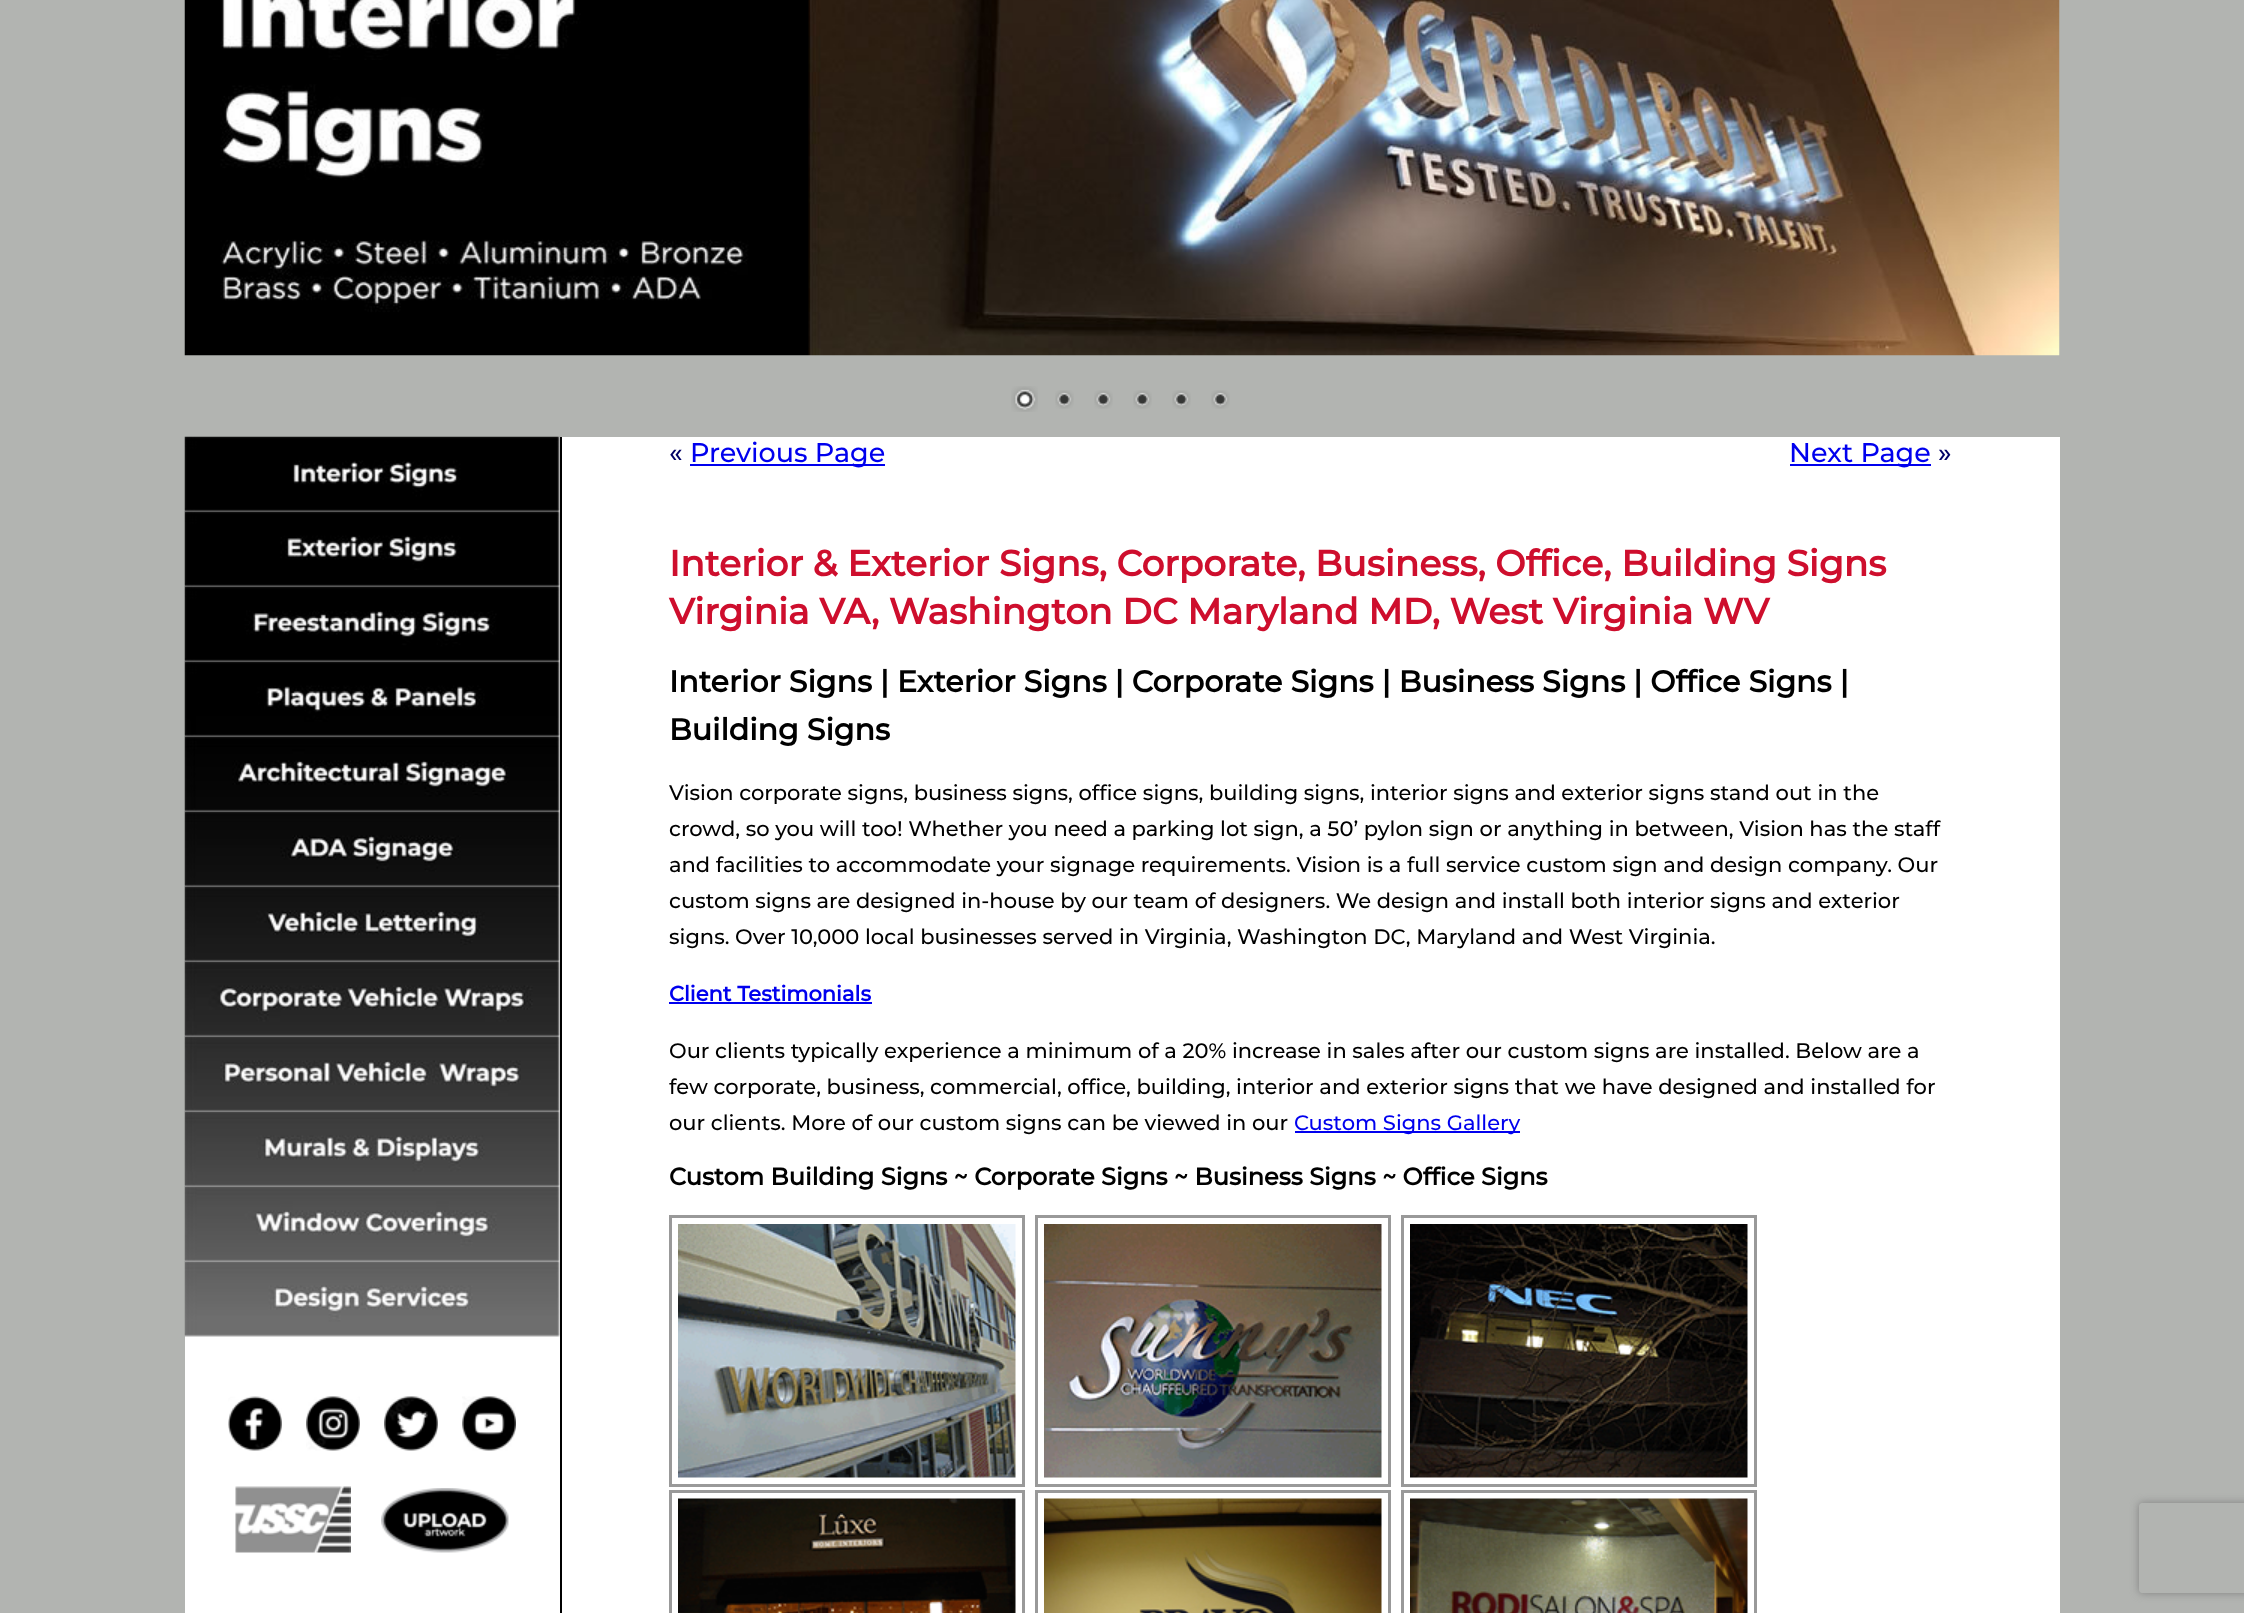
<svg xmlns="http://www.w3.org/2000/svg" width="2244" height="1613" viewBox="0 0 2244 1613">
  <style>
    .t1 { font: 100 27px Montserrat; fill: #006; }
    .t2 { font: 100 27px Montserrat; fill: #00e; }
    .t3 { font: bold 36px Montserrat; fill: #ce0e2d; }
    .t4 { font: bold 30px Montserrat; fill: #000; }
    .t5 { font: 100 21px Montserrat; fill: #000; }
    .t6 { font: bold 21px Montserrat; fill: #00e; }
    .t7 { font: 100 21px Montserrat; fill: #00e; }
    .t8 { font: bold 24px Montserrat; fill: #000; }
  </style>
  <defs>
    <clipPath id="clip1"><path d="M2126 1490H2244V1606H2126ZM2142 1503H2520C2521.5 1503 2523 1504.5 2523 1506V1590C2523 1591.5 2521.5 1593 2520 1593H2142C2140.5 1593 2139 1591.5 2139 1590V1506C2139 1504.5 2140.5 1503 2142 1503Z" clip-rule="evenodd"/></clipPath>
  </defs>
  <rect width="100%" height="100%" fill="#b2b4b1"/>
  <image x="184" y="0" width="1876" height="356" href="images/1.png"/>
  <image x="1011" y="386" width="27" height="26" href="images/2.png"/>
  <image x="1055" y="390" width="19" height="19" href="images/3.png"/>
  <image x="1094" y="390" width="19" height="19" href="images/3.png"/>
  <image x="1133" y="390" width="19" height="19" href="images/3.png"/>
  <image x="1172" y="390" width="19" height="19" href="images/3.png"/>
  <image x="1211" y="390" width="19" height="19" href="images/3.png"/>
  <rect x="185" y="437" width="1875" height="1176" fill="#fff"/>
  <image x="184" y="436" width="376" height="76" href="images/4.png"/>
  <image x="184" y="511" width="376" height="76" href="images/5.png"/>
  <image x="184" y="586" width="376" height="76" href="images/6.png"/>
  <image x="184" y="661" width="376" height="76" href="images/7.png"/>
  <image x="184" y="736" width="376" height="76" href="images/8.png"/>
  <image x="184" y="811" width="376" height="76" href="images/9.png"/>
  <image x="184" y="886" width="376" height="76" href="images/10.png"/>
  <image x="184" y="961" width="376" height="76" href="images/11.png"/>
  <image x="184" y="1036" width="376" height="76" href="images/12.png"/>
  <image x="184" y="1111" width="376" height="76" href="images/13.png"/>
  <image x="184" y="1186" width="376" height="76" href="images/14.png"/>
  <image x="184" y="1261" width="376" height="76" href="images/15.png"/>
  <image x="228" y="1396" width="54" height="55" href="images/16.png"/>
  <image x="306" y="1396" width="54" height="55" href="images/17.png"/>
  <image x="384" y="1396" width="54" height="55" href="images/18.png"/>
  <image x="462" y="1396" width="54" height="55" href="images/19.png"/>
  <image x="235" y="1486" width="116" height="67" href="images/20.png"/>
  <image x="381" y="1488" width="128" height="65" href="images/21.png"/>
  <rect x="560" y="437" width="2" height="1176" fill="#000"/>
  <text x="669" y="462" class="t1">«</text>
  <rect x="690" y="464" width="195" height="2" fill="#00e"/>
  <text x="690" y="462" class="t2">Previous Page</text>
  <rect x="1790" y="464" width="141" height="2" fill="#00e"/>
  <text x="1789" y="462" class="t2">Next Page</text>
  <text x="1938" y="462" class="t1">»</text>
  <text x="669" y="576" class="t3">Interior &amp; Exterior Signs, Corporate, Business, Office, Building Signs</text>
  <text x="669" y="624" class="t3">Virginia VA, Washington DC Maryland MD, West Virginia WV</text>
  <text x="669" y="692" class="t4">Interior Signs | Exterior Signs | Corporate Signs | Business Signs | Office Signs |</text>
  <text x="669" y="740" class="t4">Building Signs</text>
  <text x="669" y="800" class="t5">Vision corporate signs, business signs, office signs, building signs, interior signs and exterior signs stand out in the</text>
  <text x="669" y="836" class="t5">crowd, so you will too! Whether you need a parking lot sign, a 50’ pylon sign or anything in between, Vision has the staff</text>
  <text x="669" y="872" class="t5">and facilities to accommodate your signage requirements. Vision is a full service custom sign and design company. Our</text>
  <text x="669" y="908" class="t5">custom signs are designed in-house by our team of designers. We design and install both interior signs and exterior</text>
  <text x="669" y="944" class="t5">signs. Over 10,000 local businesses served in Virginia, Washington DC, Maryland and West Virginia.</text>
  <text x="669" y="1001" class="t6">Client Testimonials</text>
  <rect x="669" y="1002" width="203" height="2" fill="#00e"/>
  <text x="669" y="1058" class="t5">Our clients typically experience a minimum of a 20% increase in sales after our custom signs are installed. Below are a</text>
  <text x="669" y="1094" class="t5">few corporate, business, commercial, office, building, interior and exterior signs that we have designed and installed for</text>
  <text x="669" y="1130" class="t5">our clients. More of our custom signs can be viewed in our</text>
  <rect x="1295" y="1131" width="225" height="2" fill="#00e"/>
  <text x="1294" y="1130" class="t7">Custom Signs Gallery</text>
  <text x="669" y="1185" class="t8">Custom Building Signs ~ Corporate Signs ~ Business Signs ~ Office Signs</text>
  <rect x="670.5" y="1216.5" width="353" height="269" fill="none" stroke="#999" stroke-width="3"/>
  <image x="678" y="1224" width="338" height="254" href="images/22.png"/>
  <rect x="1036.5" y="1216.5" width="353" height="269" fill="none" stroke="#999" stroke-width="3"/>
  <image x="1044" y="1224" width="338" height="254" href="images/23.png"/>
  <rect x="1402.5" y="1216.5" width="353" height="269" fill="none" stroke="#999" stroke-width="3"/>
  <image x="1410" y="1224" width="338" height="254" href="images/24.png"/>
  <rect x="670.5" y="1491.5" width="353" height="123" fill="none" stroke="#999" stroke-width="3"/>
  <image x="678" y="1498" width="338" height="115" href="images/25.png"/>
  <rect x="1036.5" y="1491.5" width="353" height="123" fill="none" stroke="#999" stroke-width="3"/>
  <image x="1044" y="1498" width="338" height="115" href="images/26.png"/>
  <rect x="1402.5" y="1491.5" width="353" height="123" fill="none" stroke="#999" stroke-width="3"/>
  <image x="1410" y="1498" width="338" height="115" href="images/27.png"/>
  <g clip-path="url(#clip1)">
    <rect x="2139" y="1503" width="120" height="90" rx="3" fill="#808080" filter="blur(4px)"/>
  </g>
</svg>
